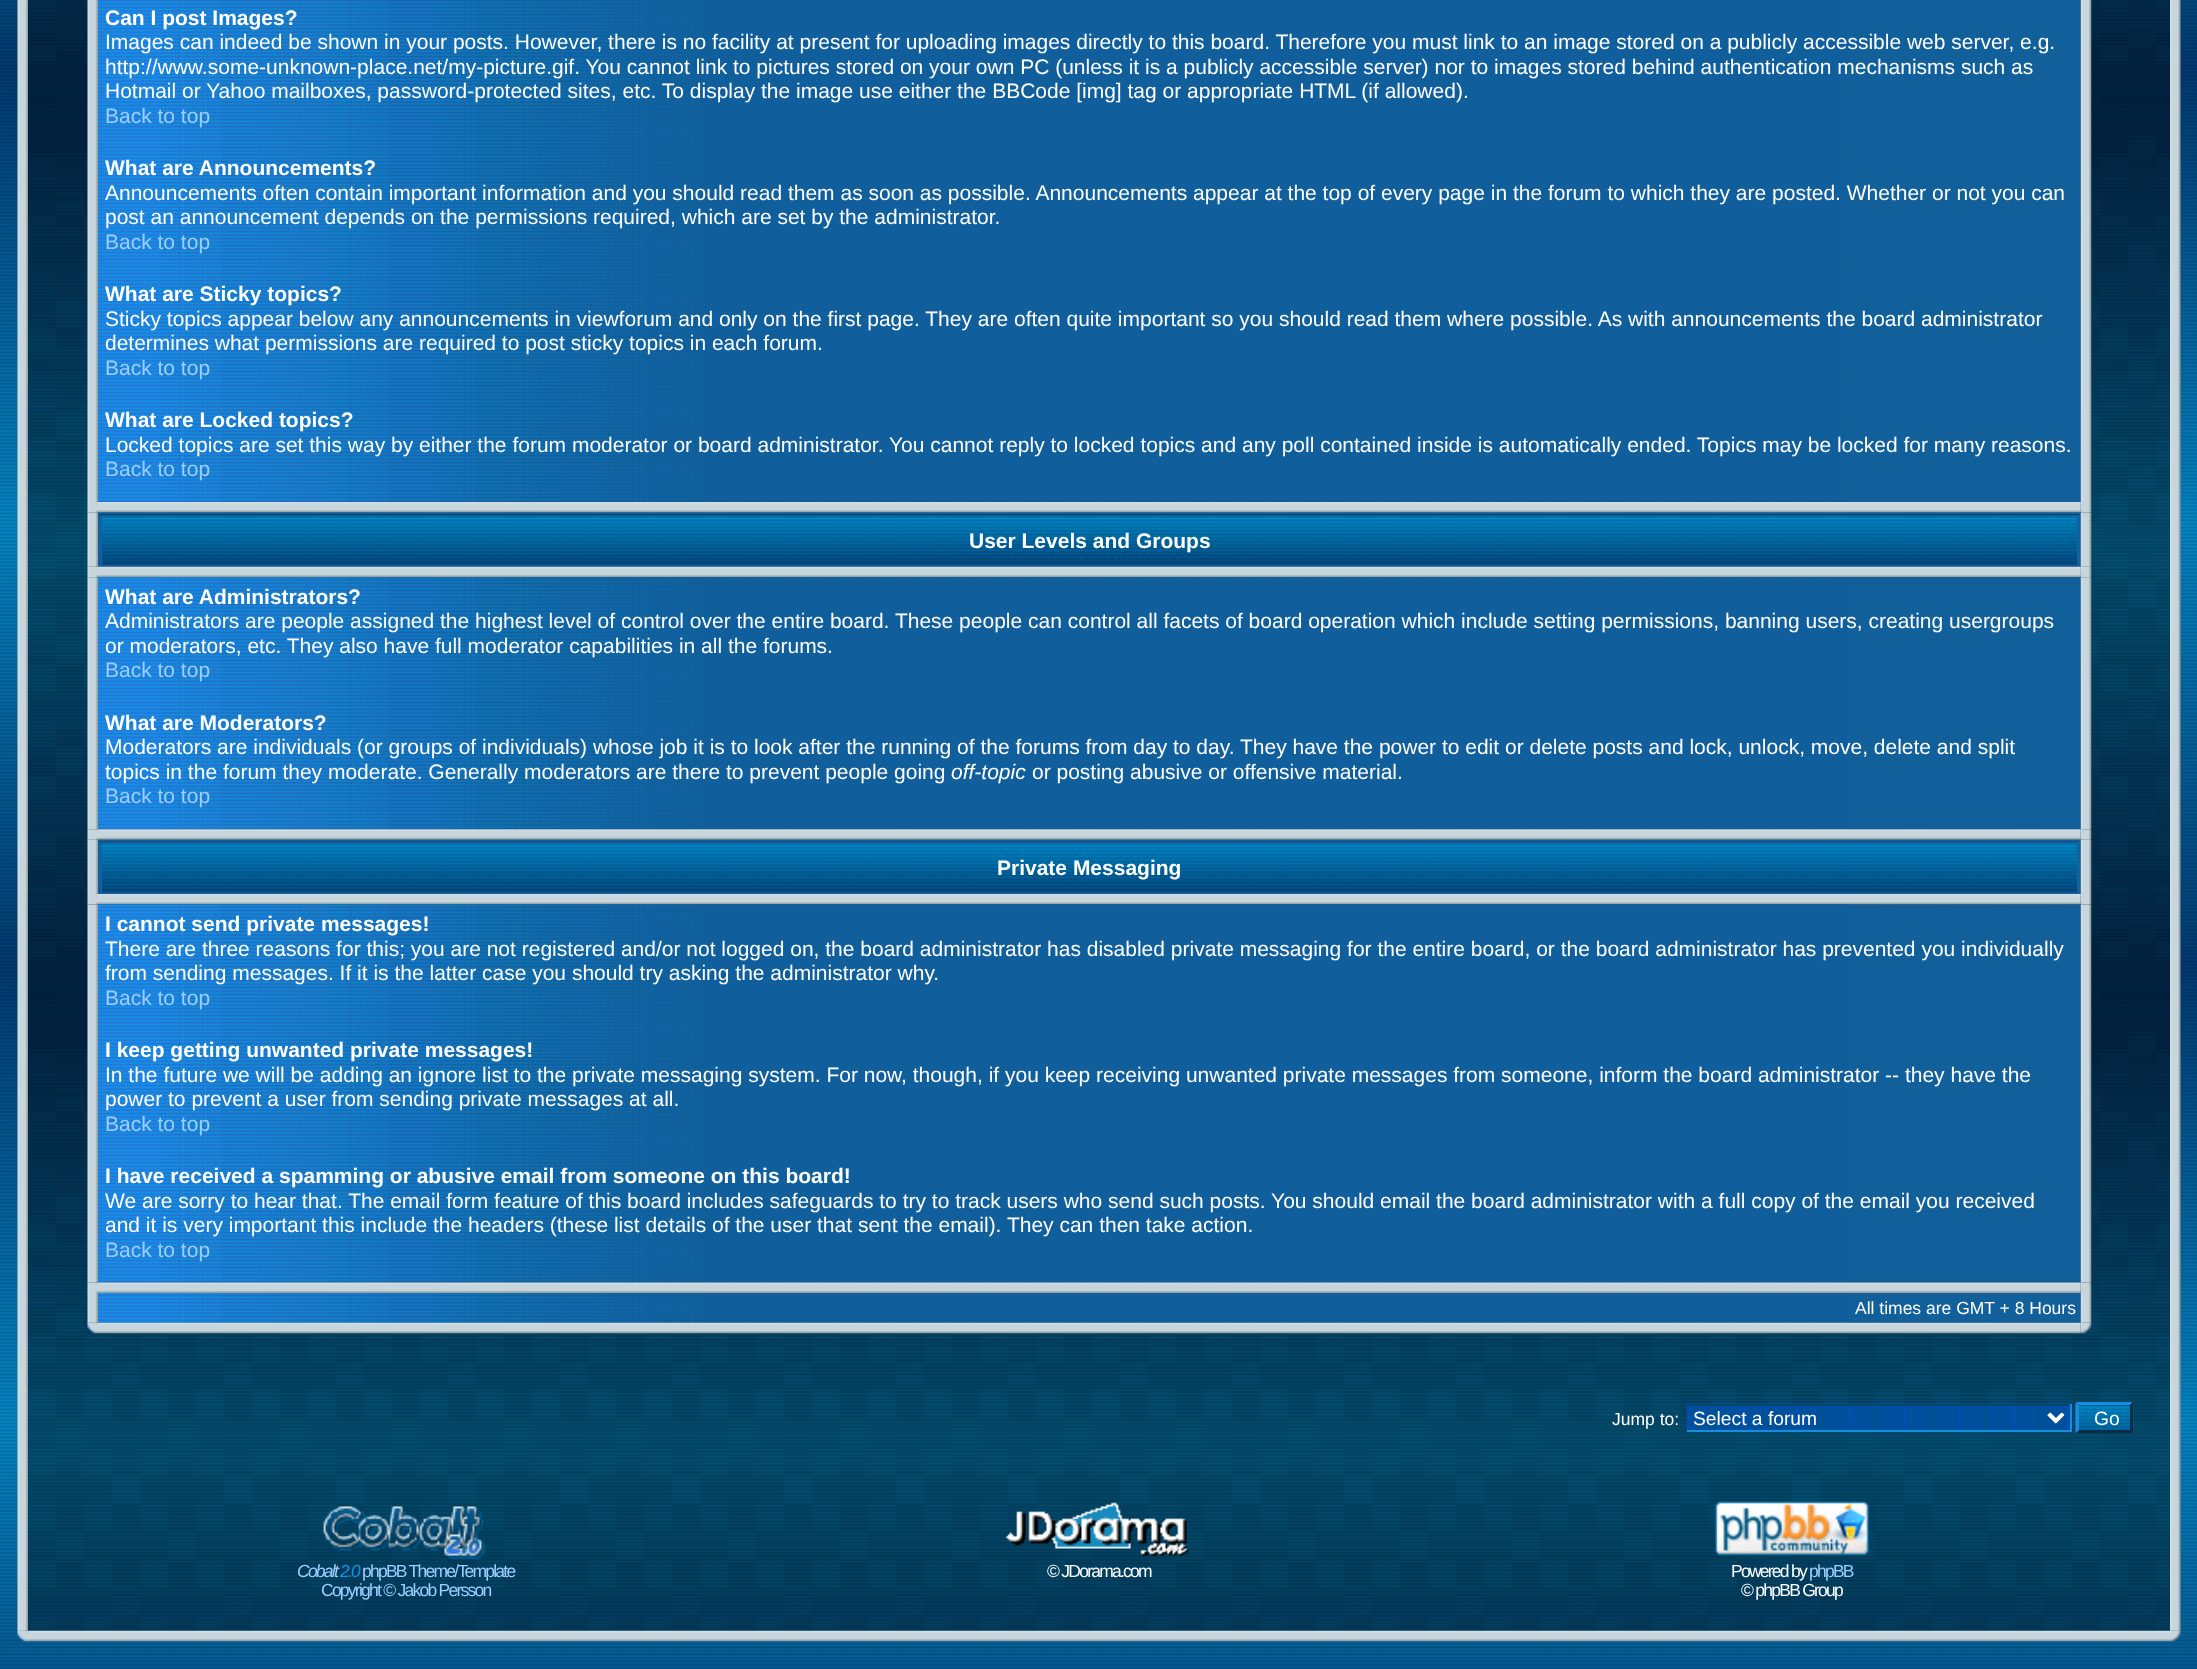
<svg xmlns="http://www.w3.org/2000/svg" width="2197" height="1669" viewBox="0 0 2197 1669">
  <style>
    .t1 { font: bold 21px Liberation Sans; fill: #fff; }
    .t2 { font: 21px Liberation Sans; fill: #fff; }
    .t3 { font: 21px Liberation Sans; fill: #9cceff; }
    .t4 { font: italic 21px Liberation Sans; fill: #fff; }
    .t5 { font: 17.5px Liberation Sans; fill: #fff; }
    .t6 { font: 19.25px Liberation Sans; fill: #fff; }
    .t7 { font: italic 17.5px Liberation Sans; letter-spacing: -1.75px; fill: #9cceff; }
    .t8 { font: italic 17.5px Liberation Sans; letter-spacing: -1.75px; fill: #1094e7; }
    .t9 { font: 17.5px Liberation Sans; letter-spacing: -1.75px; fill: #9cceff; }
    .t10 { font: 17.5px Liberation Sans; letter-spacing: -1.75px; fill: #fff; }
  </style>
  <rect width="100%" height="100%" fill="#fff"/>
  <image x="0" y="0" width="2197" height="1669" href="images/1.png"/>
  <image x="17" y="0" width="11" height="1631" href="images/2.png"/>
  <image x="28" y="0" width="2142" height="1631" href="images/3.png"/>
  <image x="87" y="0" width="11" height="502" href="images/4.png"/>
  <image x="1846" y="0" width="235" height="502" href="images/5.png"/>
  <image x="98" y="0" width="1748" height="502" href="images/6.png"/>
  <text x="105" y="25" class="t1">Can I post Images?</text>
  <text x="105" y="49" class="t2">Images can indeed be shown in your posts. However, there is no facility at present for uploading images directly to this board. Therefore you must link to an image stored on a publicly accessible web server, e.g.</text>
  <text x="105" y="74" class="t2">http://www.some-unknown-place.net/my-picture.gif. You cannot link to pictures stored on your own PC (unless it is a publicly accessible server) nor to images stored behind authentication mechanisms such as</text>
  <text x="105" y="98" class="t2">Hotmail or Yahoo mailboxes, password-protected sites, etc. To display the image use either the BBCode [img] tag or appropriate HTML (if allowed).</text>
  <text x="105" y="123" class="t3">Back to top</text>
  <text x="105" y="175" class="t1">What are Announcements?</text>
  <text x="105" y="200" class="t2">Announcements often contain important information and you should read them as soon as possible. Announcements appear at the top of every page in the forum to which they are posted. Whether or not you can</text>
  <text x="105" y="224" class="t2">post an announcement depends on the permissions required, which are set by the administrator.</text>
  <text x="105" y="249" class="t3">Back to top</text>
  <text x="105" y="301" class="t1">What are Sticky topics?</text>
  <text x="105" y="326" class="t2">Sticky topics appear below any announcements in viewforum and only on the first page. They are often quite important so you should read them where possible. As with announcements the board administrator</text>
  <text x="105" y="350" class="t2">determines what permissions are required to post sticky topics in each forum.</text>
  <text x="105" y="375" class="t3">Back to top</text>
  <text x="105" y="427" class="t1">What are Locked topics?</text>
  <text x="105" y="452" class="t2">Locked topics are set this way by either the forum moderator or board administrator. You cannot reply to locked topics and any poll contained inside is automatically ended. Topics may be locked for many reasons.</text>
  <text x="105" y="476" class="t3">Back to top</text>
  <image x="2080" y="0" width="12" height="502" href="images/7.png"/>
  <image x="87" y="502" width="11" height="11" href="images/8.png"/>
  <image x="98" y="502" width="1983" height="11" href="images/9.png"/>
  <image x="2080" y="502" width="12" height="11" href="images/10.png"/>
  <image x="87" y="512" width="11" height="55" href="images/11.png"/>
  <image x="98" y="512" width="1983" height="55" href="images/12.png"/>
  <image x="99" y="514" width="1980" height="51" href="images/13.png"/>
  <rect x="100" y="515" width="1979" height="2" fill="#13619f"/>
  <rect x="2077" y="515" width="2" height="50" fill="#13619f"/>
  <rect x="100" y="515" width="2" height="50" fill="#13619f"/>
  <text x="969" y="548" class="t1">User Levels and Groups</text>
  <image x="2080" y="512" width="12" height="55" href="images/14.png"/>
  <image x="87" y="566" width="11" height="12" href="images/15.png"/>
  <image x="98" y="566" width="1983" height="12" href="images/16.png"/>
  <image x="2080" y="566" width="12" height="12" href="images/17.png"/>
  <image x="87" y="577" width="11" height="253" href="images/18.png"/>
  <image x="98" y="577" width="1983" height="253" href="images/19.png"/>
  <image x="98" y="577" width="1750" height="253" href="images/20.png"/>
  <text x="105" y="604" class="t1">What are Administrators?</text>
  <text x="105" y="628" class="t2">Administrators are people assigned the highest level of control over the entire board. These people can control all facets of board operation which include setting permissions, banning users, creating usergroups</text>
  <text x="105" y="653" class="t2">or moderators, etc. They also have full moderator capabilities in all the forums.</text>
  <text x="105" y="677" class="t3">Back to top</text>
  <text x="105" y="730" class="t1">What are Moderators?</text>
  <text x="105" y="754" class="t2">Moderators are individuals (or groups of individuals) whose job it is to look after the running of the forums from day to day. They have the power to edit or delete posts and lock, unlock, move, delete and split</text>
  <text x="105" y="779" class="t2">topics in the forum they moderate. Generally moderators are there to prevent people going</text>
  <text x="951" y="779" class="t4">off-topic</text>
  <text x="1032" y="779" class="t2">or posting abusive or offensive material.</text>
  <text x="105" y="803" class="t3">Back to top</text>
  <image x="2080" y="577" width="12" height="253" href="images/21.png"/>
  <image x="87" y="829" width="11" height="11" href="images/22.png"/>
  <image x="98" y="829" width="1983" height="11" href="images/23.png"/>
  <image x="2080" y="829" width="12" height="11" href="images/24.png"/>
  <image x="87" y="839" width="11" height="55" href="images/25.png"/>
  <image x="98" y="839" width="1983" height="55" href="images/26.png"/>
  <rect x="102" y="892" width="1975" height="1" fill="#13619f"/>
  <image x="99" y="841" width="1980" height="52" href="images/27.png"/>
  <rect x="100" y="842" width="1979" height="2" fill="#13619f"/>
  <rect x="2077" y="842" width="2" height="51" fill="#13619f"/>
  <rect x="100" y="842" width="2" height="51" fill="#13619f"/>
  <text x="997" y="875" class="t1">Private Messaging</text>
  <image x="2080" y="839" width="12" height="55" href="images/28.png"/>
  <image x="87" y="894" width="11" height="11" href="images/29.png"/>
  <image x="98" y="894" width="1983" height="11" href="images/30.png"/>
  <image x="2080" y="894" width="12" height="11" href="images/31.png"/>
  <image x="87" y="904" width="11" height="379" href="images/32.png"/>
  <image x="98" y="904" width="1983" height="379" href="images/33.png"/>
  <image x="98" y="904" width="1750" height="379" href="images/34.png"/>
  <text x="105" y="931" class="t1">I cannot send private messages!</text>
  <text x="105" y="956" class="t2">There are three reasons for this; you are not registered and/or not logged on, the board administrator has disabled private messaging for the entire board, or the board administrator has prevented you individually</text>
  <text x="105" y="980" class="t2">from sending messages. If it is the latter case you should try asking the administrator why.</text>
  <text x="105" y="1005" class="t3">Back to top</text>
  <text x="105" y="1057" class="t1">I keep getting unwanted private messages!</text>
  <text x="105" y="1082" class="t2">In the future we will be adding an ignore list to the private messaging system. For now, though, if you keep receiving unwanted private messages from someone, inform the board administrator -- they have the</text>
  <text x="105" y="1106" class="t2">power to prevent a user from sending private messages at all.</text>
  <text x="105" y="1131" class="t3">Back to top</text>
  <text x="105" y="1183" class="t1">I have received a spamming or abusive email from someone on this board!</text>
  <text x="105" y="1208" class="t2">We are sorry to hear that. The email form feature of this board includes safeguards to try to track users who send such posts. You should email the board administrator with a full copy of the email you received</text>
  <text x="105" y="1232" class="t2">and it is very important this include the headers (these list details of the user that sent the email). They can then take action.</text>
  <text x="105" y="1257" class="t3">Back to top</text>
  <image x="2080" y="904" width="12" height="379" href="images/35.png"/>
  <image x="87" y="1282" width="11" height="11" href="images/36.png"/>
  <image x="98" y="1282" width="1983" height="11" href="images/37.png"/>
  <image x="2080" y="1282" width="12" height="11" href="images/38.png"/>
  <image x="87" y="1293" width="11" height="30" href="images/39.png"/>
  <image x="98" y="1293" width="1983" height="30" href="images/40.png"/>
  <image x="98" y="1293" width="1750" height="30" href="images/41.png"/>
  <text x="1855" y="1314" class="t5">All times are GMT + 8 Hours</text>
  <image x="2080" y="1293" width="12" height="30" href="images/42.png"/>
  <image x="87" y="1322" width="11" height="12" href="images/43.png"/>
  <image x="98" y="1322" width="1983" height="12" href="images/44.png"/>
  <image x="2080" y="1322" width="12" height="12" href="images/45.png"/>
  <text x="1612" y="1425" class="t5">Jump to:</text>
  <image x="1685" y="1403" width="387" height="27" href="images/46.png"/>
  <rect x="1685" y="1404" width="387" height="2" fill="#0d4267"/>
  <rect x="2070" y="1404" width="2" height="28" fill="#178ddf"/>
  <rect x="1685" y="1430" width="387" height="2" fill="#178ddf"/>
  <rect x="1685" y="1404" width="2" height="28" fill="#0d4267"/>
  <path d="M2048.5 1414L2055.5 1421L2062.5 1414" fill="none" stroke="#fff" stroke-width="3.5"/>
  <text x="1693" y="1425" class="t6">Select a forum</text>
  <image x="2075" y="1401" width="59" height="32" href="images/47.png"/>
  <path d="M2076 1402H2133L2130 1405H2079Z" fill="#178ddf"/>
  <path d="M2133 1402V1433L2130 1430V1405Z" fill="#092c45"/>
  <path d="M2133 1433H2076L2079 1430H2130Z" fill="#092c45"/>
  <path d="M2075.5 1433V1402L2079 1405V1430Z" fill="#178ddf"/>
  <text x="2094" y="1425" class="t6">Go</text>
  <image x="323" y="1506" width="163" height="54" href="images/48.png"/>
  <text x="297" y="1577" class="t7">Cobalt</text>
  <text x="340" y="1577" class="t8">2.0</text>
  <text x="362" y="1577" class="t9">phpBB Theme/Template</text>
  <text x="321" y="1596" class="t9">Copyright © Jakob Persson</text>
  <image x="1006" y="1502" width="183" height="54" href="images/49.png"/>
  <text x="1047" y="1577" class="t10">© JDorama.com</text>
  <image x="1715" y="1501" width="154" height="55" href="images/50.png"/>
  <text x="1731" y="1577" class="t10">Powered by</text>
  <text x="1809" y="1577" class="t9">phpBB</text>
  <text x="1741" y="1596" class="t10">© phpBB Group</text>
  <image x="2170" y="0" width="11" height="1631" href="images/51.png"/>
  <image x="17" y="1630" width="11" height="12" href="images/52.png"/>
  <image x="28" y="1630" width="2142" height="12" href="images/53.png"/>
  <image x="2170" y="1630" width="11" height="12" href="images/54.png"/>
</svg>
